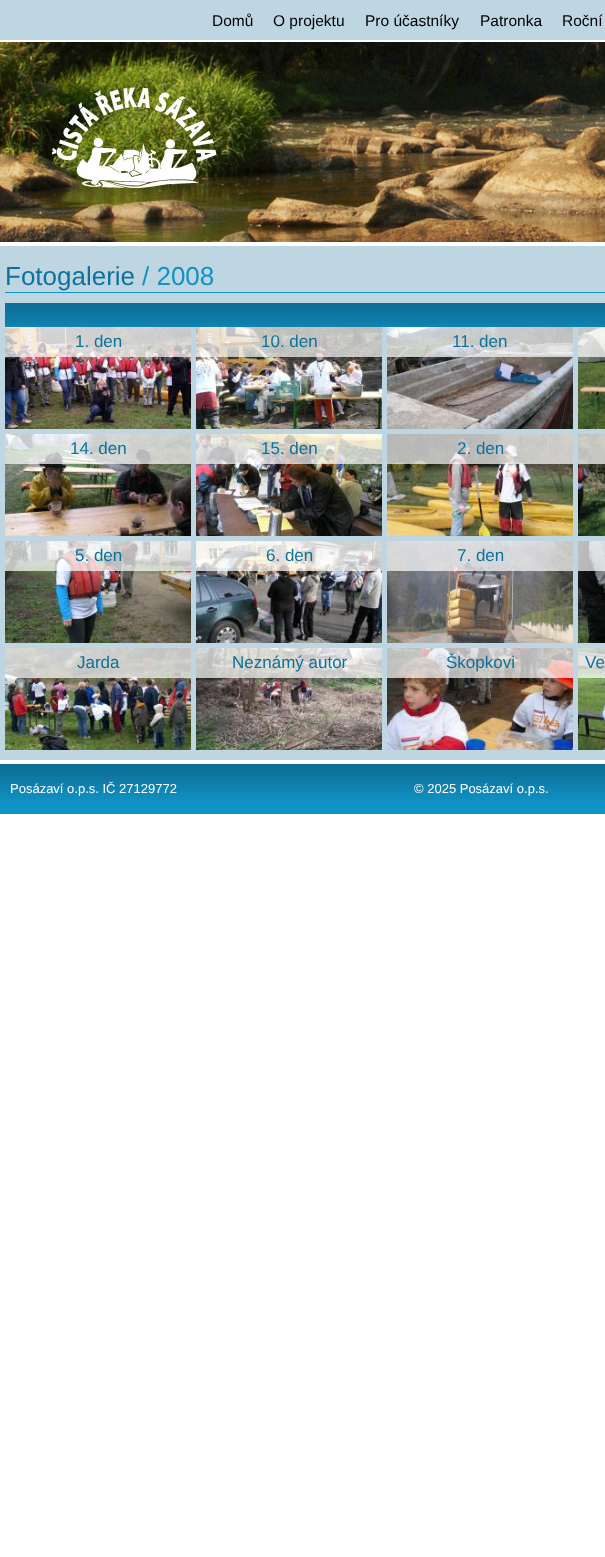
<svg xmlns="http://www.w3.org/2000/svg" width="605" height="1557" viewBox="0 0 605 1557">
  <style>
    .t1 { font: 15.5px Liberation Sans; fill: #000; }
    .t2 { font: 26px Liberation Sans; fill: #0d729b; }
    .t3 { font: 26px Liberation Sans; fill: #1192c5; }
    .t4 { font: 17px Liberation Sans; fill: #0d729b; }
    .t5 { font: 13px Liberation Sans; fill: #fff; }
  </style>
  <rect width="100%" height="100%" fill="#fff"/>
  <rect x="0" y="0" width="605" height="40" fill="#bed6e2"/>
  <text x="212" y="26" class="t1">Domů</text>
  <text x="273" y="26" class="t1">O projektu</text>
  <text x="365" y="26" class="t1">Pro účastníky</text>
  <text x="480" y="26" class="t1">Patronka</text>
  <text x="562" y="26" class="t1">Roční</text>
  <image x="0" y="42" width="605" height="200" href="images/1.png"/>
  <rect x="0" y="246" width="605" height="514" fill="#bed6e2"/>
  <rect x="5" y="292" width="600" height="1" fill="#1192c5"/>
  <text x="5" y="285" class="t2">Fotogalerie</text>
  <text x="142" y="285" class="t3">/ 2008</text>
  <image x="5" y="303" width="600" height="24" href="images/2.png"/>
  <image x="5" y="327" width="186" height="102" href="images/3.png"/>
  <rect x="5" y="327" width="186" height="30" fill="#ffffffb3"/>
  <text x="75" y="347" class="t4">1. den</text>
  <image x="196" y="327" width="186" height="102" href="images/4.png"/>
  <rect x="196" y="327" width="186" height="30" fill="#ffffffb3"/>
  <text x="261" y="347" class="t4">10. den</text>
  <image x="387" y="327" width="186" height="102" href="images/5.png"/>
  <rect x="387" y="327" width="186" height="30" fill="#ffffffb3"/>
  <text x="452" y="347" class="t4">11. den</text>
  <image x="578" y="327" width="27" height="102" href="images/6.png"/>
  <rect x="578" y="327" width="27" height="30" fill="#ffffffb3"/>
  <image x="5" y="434" width="186" height="102" href="images/7.png"/>
  <rect x="5" y="434" width="186" height="30" fill="#ffffffb3"/>
  <text x="70" y="454" class="t4">14. den</text>
  <image x="196" y="434" width="186" height="102" href="images/8.png"/>
  <rect x="196" y="434" width="186" height="30" fill="#ffffffb3"/>
  <text x="261" y="454" class="t4">15. den</text>
  <image x="387" y="434" width="186" height="102" href="images/9.png"/>
  <rect x="387" y="434" width="186" height="30" fill="#ffffffb3"/>
  <text x="457" y="454" class="t4">2. den</text>
  <image x="578" y="434" width="27" height="102" href="images/10.png"/>
  <rect x="578" y="434" width="27" height="30" fill="#ffffffb3"/>
  <image x="5" y="541" width="186" height="102" href="images/11.png"/>
  <rect x="5" y="541" width="186" height="30" fill="#ffffffb3"/>
  <text x="75" y="561" class="t4">5. den</text>
  <image x="196" y="541" width="186" height="102" href="images/12.png"/>
  <rect x="196" y="541" width="186" height="30" fill="#ffffffb3"/>
  <text x="266" y="561" class="t4">6. den</text>
  <image x="387" y="541" width="186" height="102" href="images/13.png"/>
  <rect x="387" y="541" width="186" height="30" fill="#ffffffb3"/>
  <text x="457" y="561" class="t4">7. den</text>
  <image x="578" y="541" width="27" height="102" href="images/14.png"/>
  <rect x="578" y="541" width="27" height="30" fill="#ffffffb3"/>
  <image x="5" y="648" width="186" height="102" href="images/15.png"/>
  <rect x="5" y="648" width="186" height="30" fill="#ffffffb3"/>
  <text x="77" y="668" class="t4">Jarda</text>
  <image x="196" y="648" width="186" height="102" href="images/16.png"/>
  <rect x="196" y="648" width="186" height="30" fill="#ffffffb3"/>
  <text x="232" y="668" class="t4">Neznámý autor</text>
  <image x="387" y="648" width="186" height="102" href="images/17.png"/>
  <rect x="387" y="648" width="186" height="30" fill="#ffffffb3"/>
  <text x="446" y="668" class="t4">Škopkovi</text>
  <image x="578" y="648" width="27" height="102" href="images/18.png"/>
  <rect x="578" y="648" width="27" height="30" fill="#ffffffb3"/>
  <text x="585" y="668" class="t4">Ve</text>
  <rect x="0" y="800" width="605" height="14" fill="#1192c5"/>
  <image x="0" y="764" width="605" height="36" href="images/19.png"/>
  <text x="10" y="793" class="t5">Posázaví o.p.s. IČ 27129772</text>
  <text x="414" y="793" class="t5">© 2025 Posázaví o.p.s.</text>
</svg>
